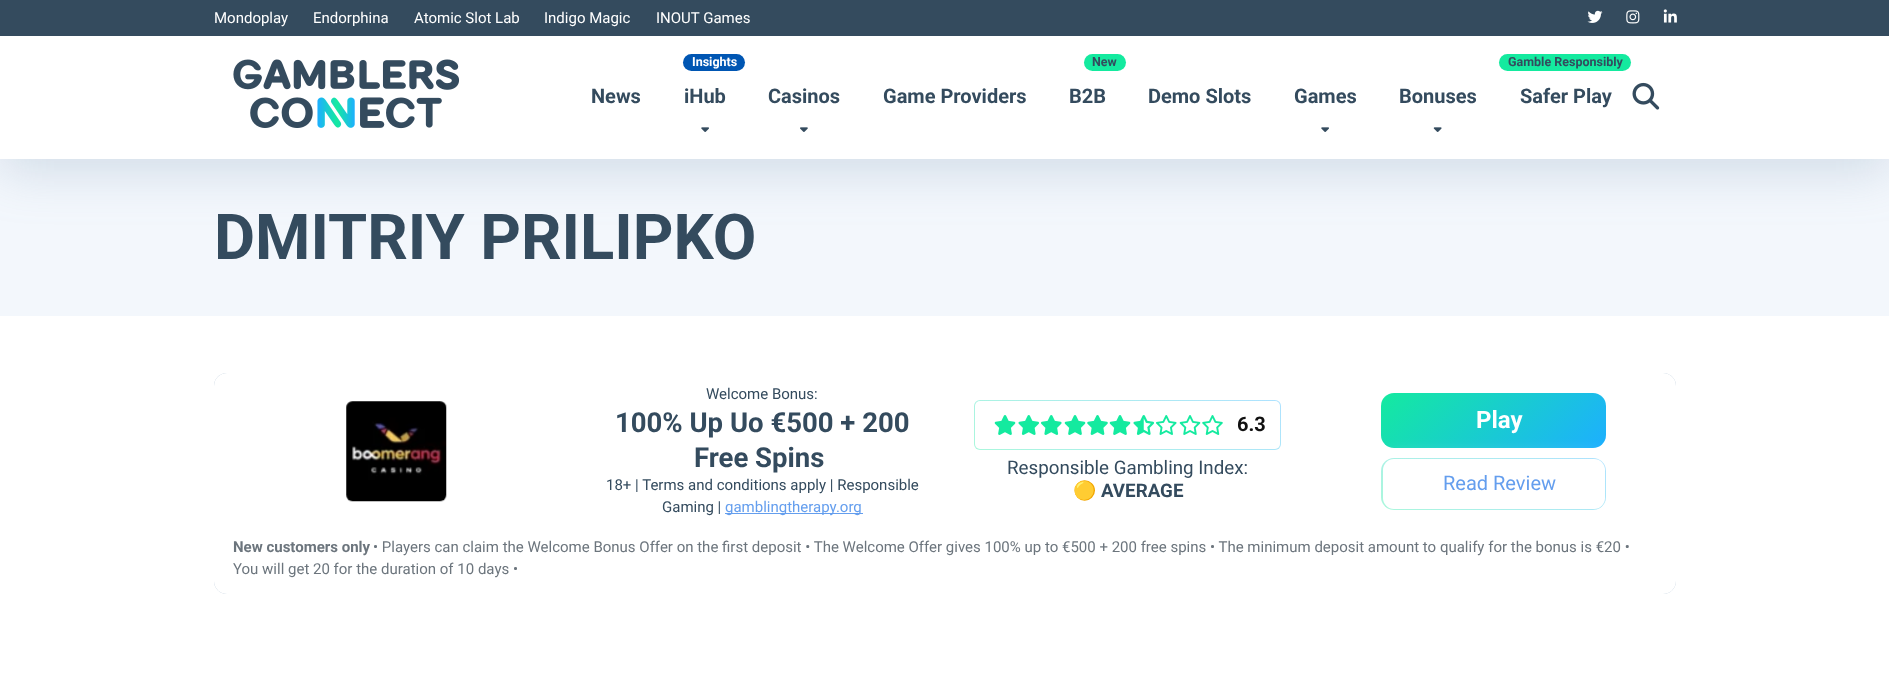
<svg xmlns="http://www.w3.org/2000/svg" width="1889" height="674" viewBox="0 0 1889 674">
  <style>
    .t1 { font: 15px Roboto; fill: #fff; }
    .t2 { font: bold 20px Roboto; fill: #344b5e; }
    .t3 { font: bold 12.5px Roboto; fill: #fff; }
    .t4 { font: bold 12.5px Roboto; fill: #344b5e; }
    .t5 { font: bold 63.25px Roboto; fill: #344b5e; }
    .t6 { font: 15px Roboto; fill: #344b5e; }
    .t7 { font: bold 27.5px Roboto; fill: #344b5e; }
    .t8 { font: 15px Roboto; fill: #649eee; }
    .t9 { font: bold 20px Roboto; fill: #111; }
    .t10 { font: 18.75px Roboto; fill: #344b5e; }
    .t11 { font: bold 18.75px Noto Color Emoji; fill: #344b5e; }
    .t12 { font: bold 18.75px Roboto; fill: #344b5e; }
    .t13 { font: bold 24px Roboto; fill: #fff; }
    .t14 { font: 20px Roboto; fill: #649eee; }
    .t15 { font: bold 15px Roboto; fill: #6c757d; }
    .t16 { font: 15px Roboto; fill: #6c757d; }
  </style>
  <defs>
    <linearGradient id="g1" gradientUnits="userSpaceOnUse" x1="1062" y1="514" x2="1193" y2="336"><stop offset="0" stop-color="#aaf7dc"/><stop offset="1" stop-color="#aee2ff"/></linearGradient>
    <linearGradient id="g2" gradientUnits="userSpaceOnUse" x1="1424" y1="350" x2="1564" y2="490"><stop offset="0" stop-color="#14ea9f"/><stop offset="1" stop-color="#1dafff"/></linearGradient>
    <linearGradient id="g3" gradientUnits="userSpaceOnUse" x1="1442" y1="554" x2="1545" y2="413"><stop offset="0" stop-color="#aaf7dc"/><stop offset="1" stop-color="#aee2ff"/></linearGradient>
  </defs>
  <rect width="100%" height="100%" fill="#fff"/>
  <rect x="0" y="159" width="1889" height="157" fill="#f3f7fc"/>
  <rect x="0" y="13" width="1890" height="158" fill="#6d8dad40" filter="blur(25px)"/>
  <rect x="0" y="36" width="1889" height="123" fill="#fff"/>
  <rect x="0" y="0" width="1889" height="36" fill="#344b5e"/>
  <text x="214" y="23" class="t1">Mondoplay</text>
  <text x="313" y="23" class="t1">Endorphina</text>
  <text x="414" y="23" class="t1">Atomic Slot Lab</text>
  <text x="544" y="23" class="t1">Indigo Magic</text>
  <text x="656" y="23" class="t1">INOUT Games</text>
  <image x="1587" y="10" width="16" height="13" href="images/1.png"/>
  <image x="1626" y="10" width="14" height="14" href="images/2.png"/>
  <image x="1663" y="9" width="14" height="14" href="images/3.png"/>
  <image x="233" y="59" width="227" height="70" href="images/4.png"/>
  <text x="591" y="103" class="t2">News</text>
  <rect x="683" y="54" width="62" height="17" rx="8.5" fill="#0056b3"/>
  <text x="692" y="66" class="t3">Insights</text>
  <text x="684" y="103" class="t2">iHub</text>
  <image x="701" y="127" width="8" height="5" href="images/5.png"/>
  <text x="768" y="103" class="t2">Casinos</text>
  <image x="800" y="127" width="8" height="5" href="images/6.png"/>
  <text x="883" y="103" class="t2">Game Providers</text>
  <rect x="1084" y="54" width="42" height="17" rx="8.5" fill="#14ea9f"/>
  <text x="1092" y="66" class="t4">New</text>
  <text x="1069" y="103" class="t2">B2B</text>
  <text x="1148" y="103" class="t2">Demo Slots</text>
  <text x="1294" y="103" class="t2">Games</text>
  <image x="1321" y="127" width="8" height="5" href="images/5.png"/>
  <text x="1399" y="103" class="t2">Bonuses</text>
  <image x="1433" y="127" width="9" height="5" href="images/7.png"/>
  <rect x="1499" y="54" width="132" height="17" rx="8.5" fill="#14ea9f"/>
  <text x="1508" y="66" class="t4">Gamble Responsibly</text>
  <text x="1520" y="103" class="t2">Safer Play</text>
  <image x="1632" y="82" width="28" height="28" href="images/8.png"/>
  <text x="214" y="259" class="t5">DMITRIY PRILIPKO</text>
  <rect x="214" y="373" width="1462" height="221" rx="13" fill="#6d8dad99" filter="blur(0.5px)"/>
  <rect x="214" y="373" width="1462" height="221" rx="13" fill="#fff"/>
  <image x="346" y="401" width="101" height="101" href="images/9.png"/>
  <text x="706" y="399" class="t6">Welcome Bonus:</text>
  <text x="615" y="432" class="t7">100% Up Uo €500 + 200</text>
  <text x="694" y="467" class="t7">Free Spins</text>
  <text x="606" y="490" class="t6">18+ | Terms and conditions apply | Responsible</text>
  <text x="662" y="512" class="t6">Gaming |</text>
  <rect x="725" y="513" width="138" height="1" fill="#649eee"/>
  <text x="725" y="512" class="t8">gamblingtherapy.org</text>
  <rect x="974" y="400" width="307" height="50" rx="6" fill="url(#g1)"/>
  <rect x="975" y="401" width="305" height="48" rx="5" fill="#fff"/>
  <image x="994" y="415" width="22" height="20" href="images/10.png"/>
  <image x="1018" y="415" width="21" height="20" href="images/11.png"/>
  <image x="1041" y="415" width="21" height="20" href="images/12.png"/>
  <image x="1064" y="415" width="22" height="20" href="images/10.png"/>
  <image x="1087" y="415" width="21" height="20" href="images/13.png"/>
  <image x="1109" y="415" width="22" height="20" href="images/10.png"/>
  <image x="1133" y="415" width="21" height="20" href="images/14.png"/>
  <image x="1156" y="415" width="21" height="20" href="images/15.png"/>
  <image x="1179" y="415" width="22" height="20" href="images/16.png"/>
  <image x="1202" y="415" width="21" height="20" href="images/17.png"/>
  <text x="1237" y="431" class="t9">6.3</text>
  <text x="1007" y="474" class="t10">Responsible Gambling Index:</text>
  <text x="1073" y="497" class="t11">🟡</text>
  <text x="1101" y="497" class="t12">AVERAGE</text>
  <rect x="1381" y="393" width="225" height="55" rx="13" fill="url(#g2)"/>
  <text x="1476" y="428" class="t13">Play</text>
  <rect x="1381" y="458" width="225" height="52" rx="13" fill="#ffffff59" filter="blur(9.5px)"/>
  <rect x="1381" y="458" width="225" height="52" rx="13" fill="url(#g3)"/>
  <rect x="1383" y="459" width="222" height="50" rx="11" fill="#fff"/>
  <text x="1443" y="490" class="t14">Read Review</text>
  <text x="233" y="552" class="t15">New customers only</text>
  <text x="373" y="552" class="t16">• Players can claim the Welcome Bonus Offer on the first deposit • The Welcome Offer gives 100% up to €500 + 200 free spins • The minimum deposit amount to qualify for the bonus is €20 •</text>
  <text x="233" y="574" class="t16">You will get 20 for the duration of 10 days •</text>
</svg>
